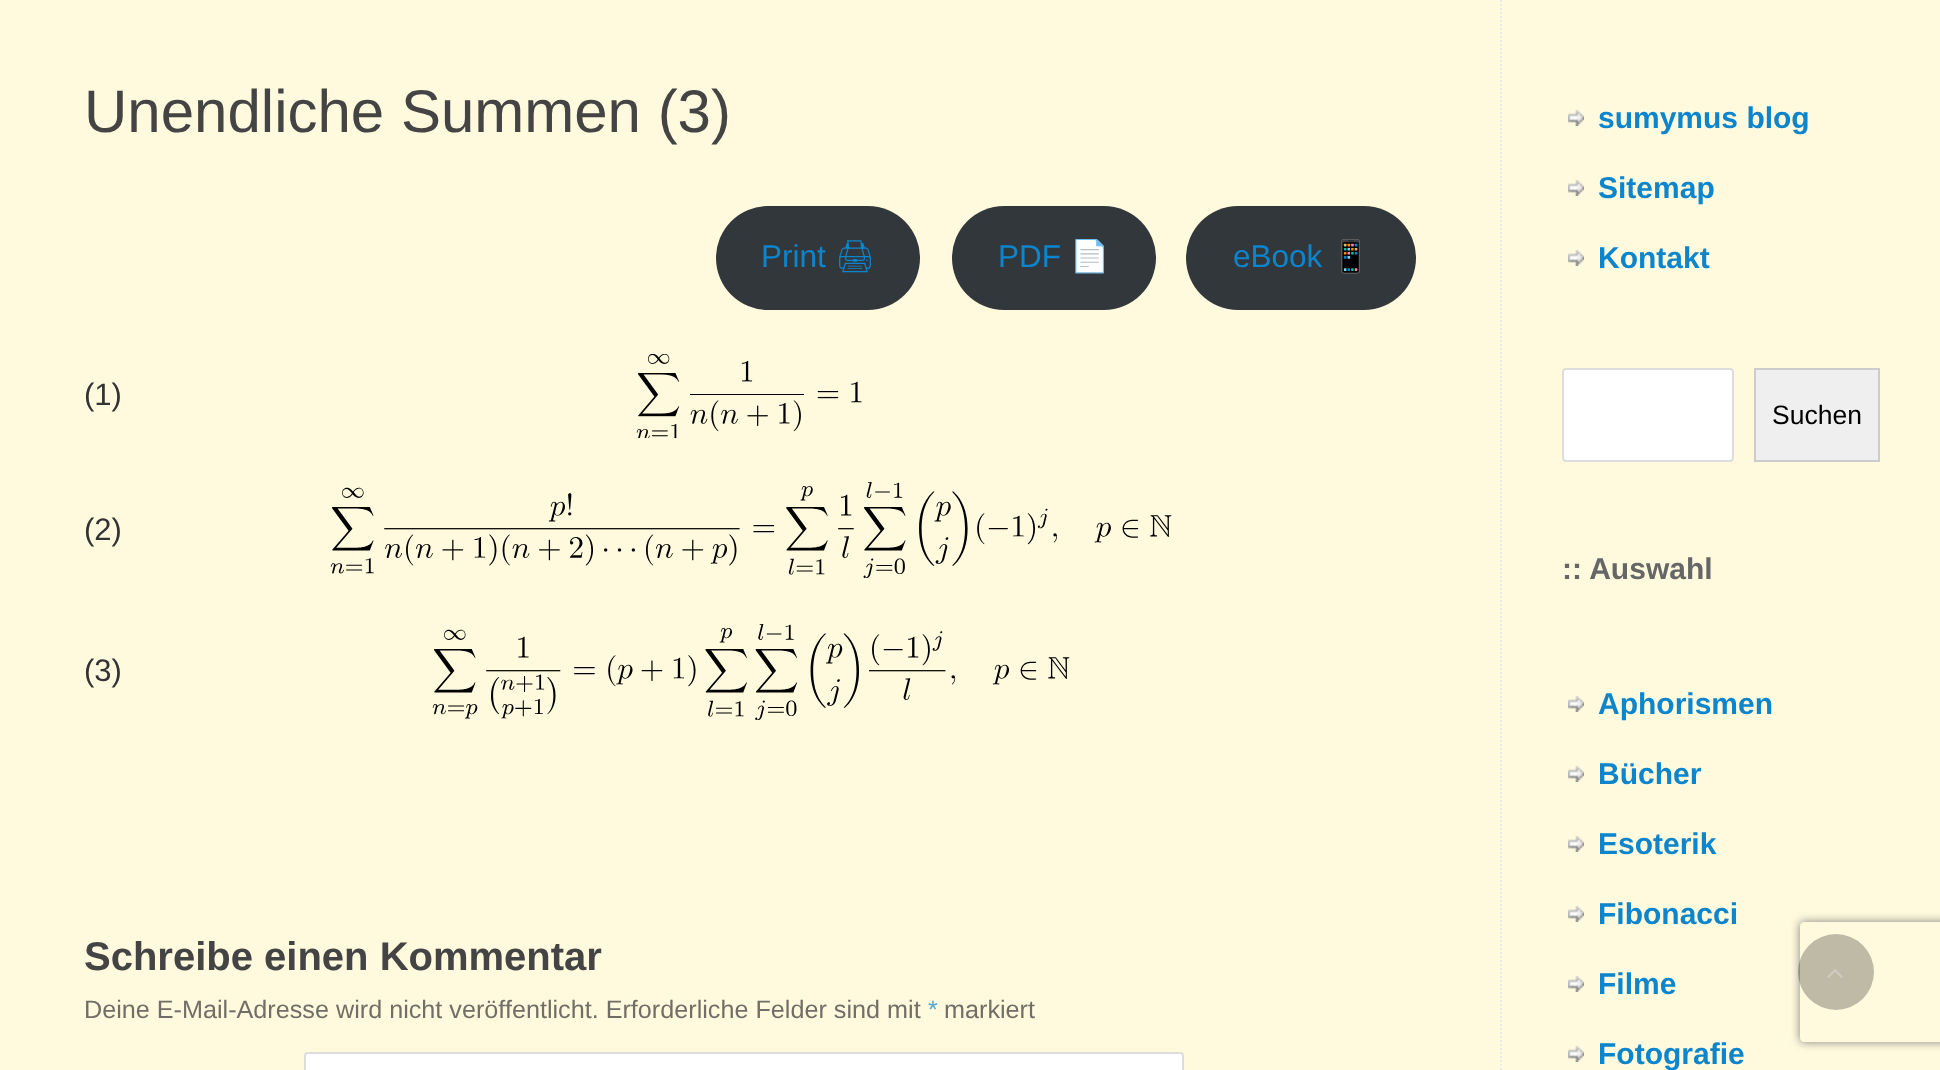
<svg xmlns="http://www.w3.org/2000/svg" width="1940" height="1070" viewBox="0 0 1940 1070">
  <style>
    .t1 { font: 60px Liberation Sans; fill: #444; }
    .t2 { font: 31.5px Liberation Sans; fill: #0d85cc; }
    .t3 { font: 31.5px Noto Emoji; fill: #0d85cc; }
    .t4 { font: 31.5px Noto Color Emoji; fill: #0d85cc; }
    .t5 { font: 31px Liberation Sans; fill: #333; }
    .t6 { font: bold 40px Liberation Sans; fill: #444; }
    .t7 { font: 25.2px Liberation Sans; fill: #706e66; }
    .t8 { font: 25.2px Liberation Sans; fill: #56a8d1; }
    .t9 { font: bold 30px Liberation Sans; fill: #0d85cc; }
    .t10 { font: 26.5px Liberation Sans; fill: #000; }
    .t11 { font: bold 30px Liberation Sans; fill: #666; }
  </style>
  <defs>
    <clipPath id="clip1"><path d="M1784 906H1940V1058H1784ZM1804 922H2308C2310 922 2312 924 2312 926V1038C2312 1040 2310 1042 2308 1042H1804C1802 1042 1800 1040 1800 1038V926C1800 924 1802 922 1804 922Z" clip-rule="evenodd"/></clipPath>
  </defs>
  <rect width="100%" height="100%" fill="#fff9dd"/>
  <text x="84" y="132" class="t1">Unendliche Summen (3)</text>
  <rect x="716" y="206" width="204" height="104" rx="52" fill="#32373c"/>
  <text x="761" y="267" class="t2">Print</text>
  <text x="835" y="267" class="t3">🖨</text>
  <rect x="952" y="206" width="204" height="104" rx="52" fill="#32373c"/>
  <text x="998" y="267" class="t2">PDF</text>
  <text x="1070" y="267" class="t4">📄</text>
  <rect x="1186" y="206" width="230" height="104" rx="52" fill="#32373c"/>
  <text x="1233" y="267" class="t2">eBook</text>
  <text x="1331" y="267" class="t4">📱</text>
  <text x="84" y="405" class="t5">(1)</text>
  <image x="636" y="354" width="226" height="84" href="images/1.png"/>
  <text x="84" y="540" class="t5">(2)</text>
  <image x="330" y="482" width="842" height="96" href="images/2.png"/>
  <text x="84" y="681" class="t5">(3)</text>
  <image x="432" y="624" width="638" height="96" href="images/3.png"/>
  <text x="84" y="970" class="t6">Schreibe einen Kommentar</text>
  <text x="84" y="1018" class="t7">Deine E-Mail-Adresse wird nicht veröffentlicht. Erforderliche Felder sind mit</text>
  <text x="928" y="1018" class="t8">*</text>
  <text x="944" y="1018" class="t7">markiert</text>
  <rect x="305" y="1053" width="878" height="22" rx="3" fill="#fff" stroke="#ddd" stroke-width="2"/>
  <path d="M1501-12V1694" fill="none" stroke="#eaeaea" stroke-width="2" stroke-dasharray="2 2"/>
  <image x="1568" y="110" width="16" height="16" href="images/4.png"/>
  <text x="1598" y="128" class="t9">sumymus blog</text>
  <image x="1568" y="180" width="16" height="16" href="images/4.png"/>
  <text x="1598" y="198" class="t9">Sitemap</text>
  <image x="1568" y="250" width="16" height="16" href="images/4.png"/>
  <text x="1598" y="268" class="t9">Kontakt</text>
  <rect x="1563" y="369" width="170" height="92" rx="3" fill="#fff" stroke="#ddd" stroke-width="2"/>
  <rect x="1755" y="369" width="124" height="92" fill="#efefef" stroke="#ccc" stroke-width="2"/>
  <text x="1772" y="424" class="t10">Suchen</text>
  <text x="1562" y="579" class="t11">:: Auswahl</text>
  <image x="1568" y="696" width="16" height="16" href="images/4.png"/>
  <text x="1598" y="714" class="t9">Aphorismen</text>
  <image x="1568" y="766" width="16" height="16" href="images/4.png"/>
  <text x="1598" y="784" class="t9">Bücher</text>
  <image x="1568" y="836" width="16" height="16" href="images/4.png"/>
  <text x="1598" y="854" class="t9">Esoterik</text>
  <image x="1568" y="906" width="16" height="16" href="images/4.png"/>
  <text x="1598" y="924" class="t9">Fibonacci</text>
  <image x="1568" y="976" width="16" height="16" href="images/4.png"/>
  <text x="1598" y="994" class="t9">Filme</text>
  <image x="1568" y="1046" width="16" height="16" href="images/4.png"/>
  <text x="1598" y="1064" class="t9">Fotografie</text>
  <g clip-path="url(#clip1)">
    <rect x="1800" y="922" width="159" height="120" rx="4" fill="#808080" filter="blur(5px)"/>
  </g>
  <circle cx="1836" cy="972" r="38" fill="#00000040"/>
  <image x="1827" y="969" width="16" height="9" href="images/5.png"/>
</svg>
